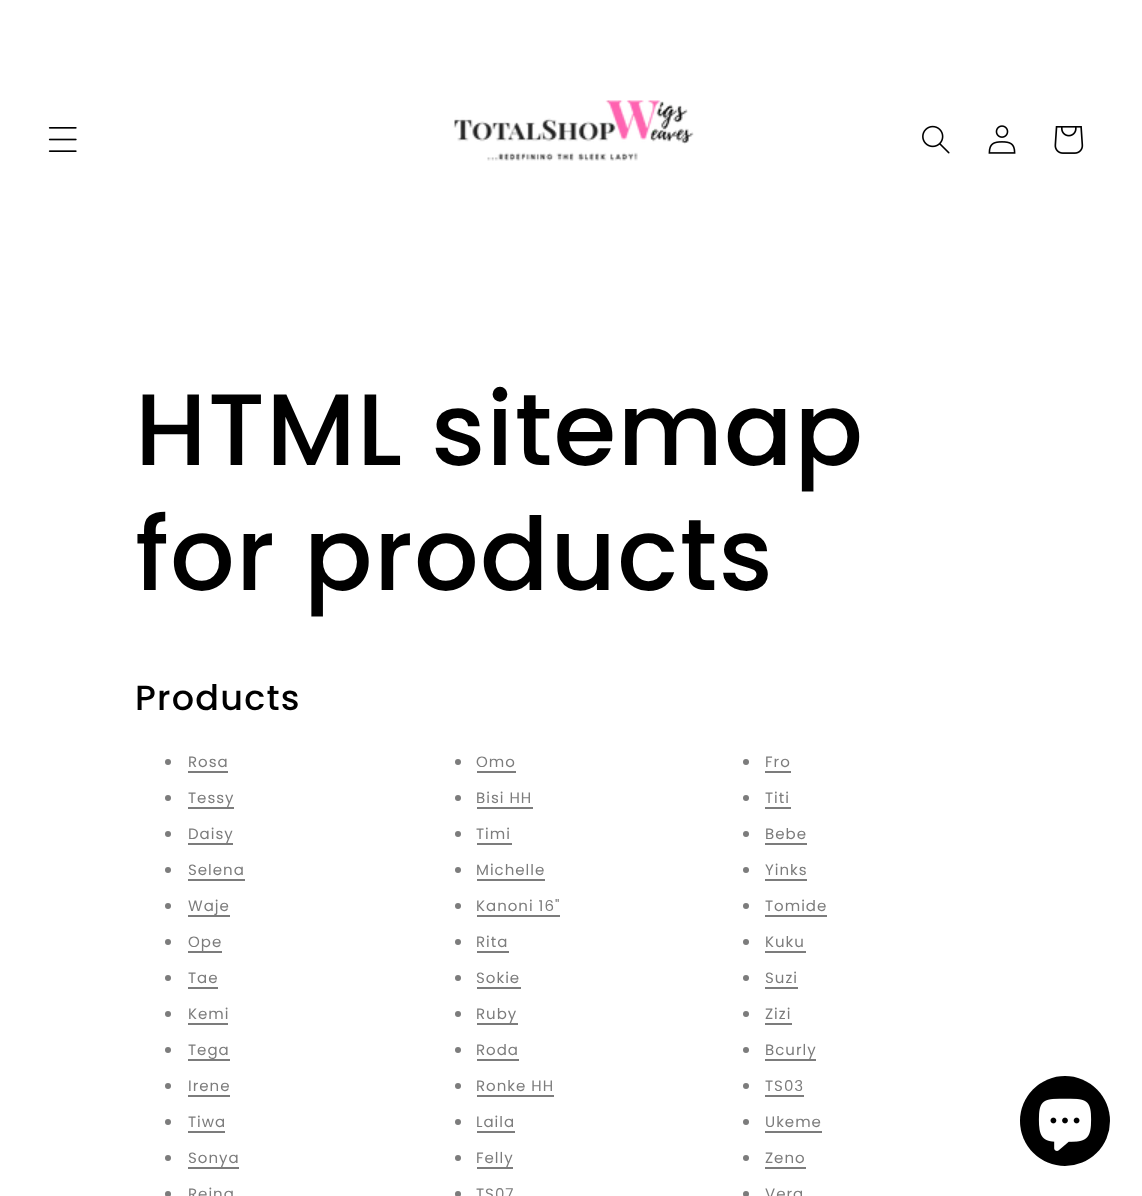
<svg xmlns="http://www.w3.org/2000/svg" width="1142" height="1196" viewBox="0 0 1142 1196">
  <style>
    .t1 { font: 500 101.5px Poppins; letter-spacing: 1.25px; fill: #000; }
    .t2 { font: 500 35px Poppins; letter-spacing: 1.25px; fill: #000; }
    .t3 { font: 15px Poppins; letter-spacing: 1px; fill: #7c7c7c; }
  </style>
  <rect width="100%" height="100%" fill="#fff"/>
  <image x="48" y="127" width="29" height="25" href="images/1.png"/>
  <image x="453" y="100" width="241" height="61" href="images/2.png"/>
  <image x="922" y="125" width="28" height="29" href="images/3.png"/>
  <image x="988" y="125" width="28" height="29" href="images/4.png"/>
  <image x="1054" y="126" width="30" height="28" href="images/5.png"/>
  <text x="135" y="465" class="t1">HTML sitemap</text>
  <text x="135" y="590" class="t1">for products</text>
  <text x="135" y="710" class="t2">Products</text>
  <circle cx="168" cy="762" r="3" fill="#7c7c7c"/>
  <text x="188" y="767" class="t3">Rosa</text>
  <rect x="188" y="771" width="40" height="2" fill="#7c7c7c"/>
  <circle cx="458" cy="762" r="3" fill="#7c7c7c"/>
  <text x="476" y="767" class="t3">Omo</text>
  <rect x="477" y="771" width="39" height="2" fill="#7c7c7c"/>
  <circle cx="746" cy="762" r="3" fill="#7c7c7c"/>
  <text x="765" y="767" class="t3">Fro</text>
  <rect x="765" y="771" width="26" height="2" fill="#7c7c7c"/>
  <circle cx="168" cy="798" r="3" fill="#7c7c7c"/>
  <text x="188" y="803" class="t3">Tessy</text>
  <rect x="188" y="807" width="46" height="2" fill="#7c7c7c"/>
  <circle cx="458" cy="798" r="3" fill="#7c7c7c"/>
  <text x="476" y="803" class="t3">Bisi HH</text>
  <rect x="477" y="807" width="56" height="2" fill="#7c7c7c"/>
  <circle cx="746" cy="798" r="3" fill="#7c7c7c"/>
  <text x="765" y="803" class="t3">Titi</text>
  <rect x="765" y="807" width="26" height="2" fill="#7c7c7c"/>
  <circle cx="168" cy="834" r="3" fill="#7c7c7c"/>
  <text x="188" y="839" class="t3">Daisy</text>
  <rect x="188" y="843" width="45" height="2" fill="#7c7c7c"/>
  <circle cx="458" cy="834" r="3" fill="#7c7c7c"/>
  <text x="476" y="839" class="t3">Timi</text>
  <rect x="477" y="843" width="35" height="2" fill="#7c7c7c"/>
  <circle cx="746" cy="834" r="3" fill="#7c7c7c"/>
  <text x="765" y="839" class="t3">Bebe</text>
  <rect x="765" y="843" width="42" height="2" fill="#7c7c7c"/>
  <circle cx="168" cy="870" r="3" fill="#7c7c7c"/>
  <text x="188" y="875" class="t3">Selena</text>
  <rect x="188" y="879" width="57" height="2" fill="#7c7c7c"/>
  <circle cx="458" cy="870" r="3" fill="#7c7c7c"/>
  <text x="476" y="875" class="t3">Michelle</text>
  <rect x="477" y="879" width="68" height="2" fill="#7c7c7c"/>
  <circle cx="746" cy="870" r="3" fill="#7c7c7c"/>
  <text x="765" y="875" class="t3">Yinks</text>
  <rect x="765" y="879" width="42" height="2" fill="#7c7c7c"/>
  <circle cx="168" cy="906" r="3" fill="#7c7c7c"/>
  <text x="188" y="911" class="t3">Waje</text>
  <rect x="188" y="915" width="42" height="2" fill="#7c7c7c"/>
  <circle cx="458" cy="906" r="3" fill="#7c7c7c"/>
  <text x="476" y="911" class="t3">Kanoni 16"</text>
  <rect x="477" y="915" width="83" height="2" fill="#7c7c7c"/>
  <circle cx="746" cy="906" r="3" fill="#7c7c7c"/>
  <text x="765" y="911" class="t3">Tomide</text>
  <rect x="765" y="915" width="62" height="2" fill="#7c7c7c"/>
  <circle cx="168" cy="942" r="3" fill="#7c7c7c"/>
  <text x="188" y="947" class="t3">Ope</text>
  <rect x="188" y="951" width="34" height="2" fill="#7c7c7c"/>
  <circle cx="458" cy="942" r="3" fill="#7c7c7c"/>
  <text x="476" y="947" class="t3">Rita</text>
  <rect x="477" y="951" width="32" height="2" fill="#7c7c7c"/>
  <circle cx="746" cy="942" r="3" fill="#7c7c7c"/>
  <text x="765" y="947" class="t3">Kuku</text>
  <rect x="765" y="951" width="41" height="2" fill="#7c7c7c"/>
  <circle cx="168" cy="978" r="3" fill="#7c7c7c"/>
  <text x="188" y="983" class="t3">Tae</text>
  <rect x="188" y="987" width="30" height="2" fill="#7c7c7c"/>
  <circle cx="458" cy="978" r="3" fill="#7c7c7c"/>
  <text x="476" y="983" class="t3">Sokie</text>
  <rect x="477" y="987" width="44" height="2" fill="#7c7c7c"/>
  <circle cx="746" cy="978" r="3" fill="#7c7c7c"/>
  <text x="765" y="983" class="t3">Suzi</text>
  <rect x="765" y="987" width="33" height="2" fill="#7c7c7c"/>
  <circle cx="168" cy="1014" r="3" fill="#7c7c7c"/>
  <text x="188" y="1019" class="t3">Kemi</text>
  <rect x="188" y="1023" width="40" height="2" fill="#7c7c7c"/>
  <circle cx="458" cy="1014" r="3" fill="#7c7c7c"/>
  <text x="476" y="1019" class="t3">Ruby</text>
  <rect x="477" y="1023" width="41" height="2" fill="#7c7c7c"/>
  <circle cx="746" cy="1014" r="3" fill="#7c7c7c"/>
  <text x="765" y="1019" class="t3">Zizi</text>
  <rect x="765" y="1023" width="27" height="2" fill="#7c7c7c"/>
  <circle cx="168" cy="1050" r="3" fill="#7c7c7c"/>
  <rect x="188" y="1059" width="42" height="2" fill="#7c7c7c"/>
  <text x="188" y="1055" class="t3">Tega</text>
  <circle cx="458" cy="1050" r="3" fill="#7c7c7c"/>
  <text x="476" y="1055" class="t3">Roda</text>
  <rect x="477" y="1059" width="42" height="2" fill="#7c7c7c"/>
  <circle cx="746" cy="1050" r="3" fill="#7c7c7c"/>
  <text x="765" y="1055" class="t3">Bcurly</text>
  <rect x="765" y="1059" width="51" height="2" fill="#7c7c7c"/>
  <circle cx="168" cy="1086" r="3" fill="#7c7c7c"/>
  <text x="188" y="1091" class="t3">Irene</text>
  <rect x="188" y="1095" width="42" height="2" fill="#7c7c7c"/>
  <circle cx="458" cy="1086" r="3" fill="#7c7c7c"/>
  <text x="476" y="1091" class="t3">Ronke HH</text>
  <rect x="477" y="1095" width="77" height="2" fill="#7c7c7c"/>
  <circle cx="746" cy="1086" r="3" fill="#7c7c7c"/>
  <text x="765" y="1091" class="t3">TS03</text>
  <rect x="765" y="1095" width="39" height="2" fill="#7c7c7c"/>
  <circle cx="168" cy="1122" r="3" fill="#7c7c7c"/>
  <text x="188" y="1127" class="t3">Tiwa</text>
  <rect x="188" y="1131" width="37" height="2" fill="#7c7c7c"/>
  <circle cx="458" cy="1122" r="3" fill="#7c7c7c"/>
  <text x="476" y="1127" class="t3">Laila</text>
  <rect x="477" y="1131" width="38" height="2" fill="#7c7c7c"/>
  <circle cx="746" cy="1122" r="3" fill="#7c7c7c"/>
  <text x="765" y="1127" class="t3">Ukeme</text>
  <rect x="765" y="1131" width="57" height="2" fill="#7c7c7c"/>
  <circle cx="168" cy="1158" r="3" fill="#7c7c7c"/>
  <text x="188" y="1163" class="t3">Sonya</text>
  <rect x="188" y="1167" width="51" height="2" fill="#7c7c7c"/>
  <circle cx="458" cy="1158" r="3" fill="#7c7c7c"/>
  <text x="476" y="1163" class="t3">Felly</text>
  <rect x="477" y="1167" width="36" height="2" fill="#7c7c7c"/>
  <circle cx="746" cy="1158" r="3" fill="#7c7c7c"/>
  <text x="765" y="1163" class="t3">Zeno</text>
  <rect x="765" y="1167" width="41" height="2" fill="#7c7c7c"/>
  <circle cx="168" cy="1194" r="3" fill="#7c7c7c"/>
  <text x="188" y="1199" class="t3">Reina</text>
  <circle cx="458" cy="1194" r="3" fill="#7c7c7c"/>
  <text x="476" y="1199" class="t3">TS07</text>
  <circle cx="746" cy="1194" r="3" fill="#7c7c7c"/>
  <text x="765" y="1199" class="t3">Vera</text>
  <circle cx="1065" cy="1121" r="45" fill="#000"/>
  <image x="1038" y="1098" width="54" height="53" href="images/6.png"/>
</svg>
